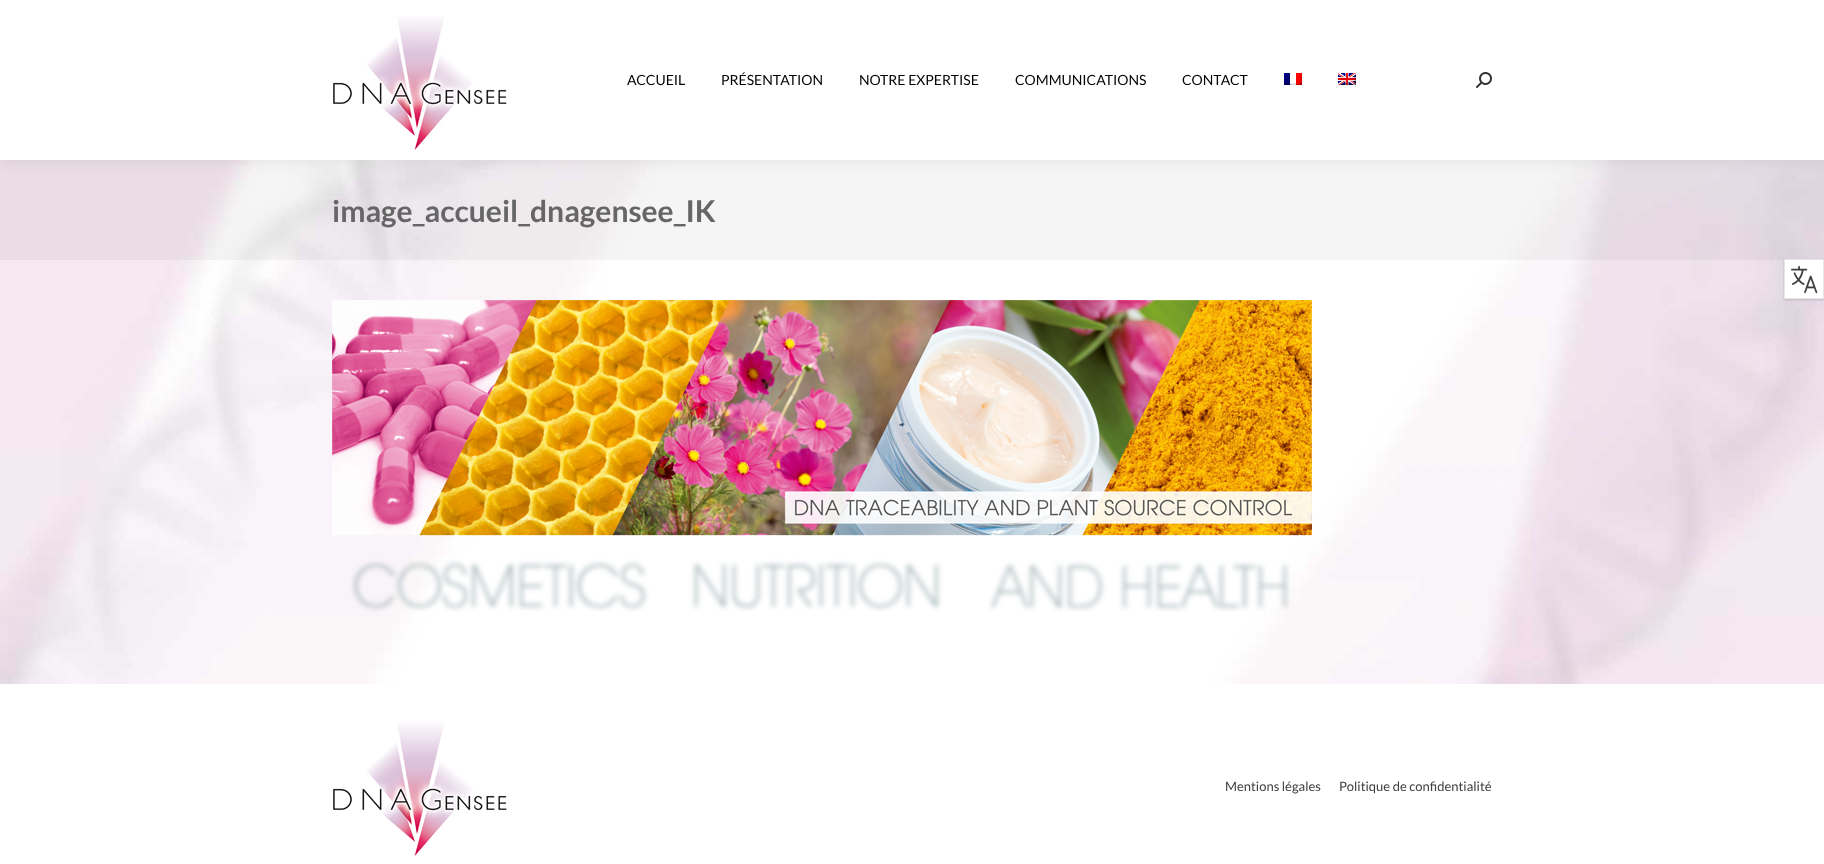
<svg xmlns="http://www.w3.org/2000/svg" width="1824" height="864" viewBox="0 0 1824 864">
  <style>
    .t1 { font: 14px Lato; fill: #020202; }
    .t2 { font: bold 30px Lato; fill: #666; }
    .t3 { font: 13px Lato; fill: #404040; }
  </style>
  <rect width="100%" height="100%" fill="#fff"/>
  <image x="0" y="160" width="1824" height="524" href="images/5.png"/>
  <rect x="0" y="160" width="1824" height="100" fill="#0000000a"/>
  <rect x="-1" y="-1" width="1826" height="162" fill="#00000012" filter="blur(7.5px)"/>
  <rect x="0" y="0" width="1824" height="160" fill="#fff"/>
  <image x="333" y="16" width="174" height="134" href="images/1.png"/>
  <text x="627" y="85" class="t1">ACCUEIL</text>
  <text x="721" y="85" class="t1">PRÉSENTATION</text>
  <text x="859" y="85" class="t1">NOTRE EXPERTISE</text>
  <text x="1015" y="85" class="t1">COMMUNICATIONS</text>
  <text x="1182" y="85" class="t1">CONTACT</text>
  <image x="1284" y="73" width="18" height="12" href="images/2.png"/>
  <image x="1338" y="73" width="18" height="12" href="images/3.png"/>
  <image x="1476" y="72" width="16" height="16" href="images/4.png"/>
  <text x="332" y="222" class="t2">image_accueil_dnagensee_IK</text>
  <image x="332" y="300" width="980" height="312" href="images/6.png"/>
  <image x="333" y="722" width="174" height="134" href="images/1.png"/>
  <text x="1225" y="791" class="t3">Mentions légales</text>
  <text x="1339" y="791" class="t3">Politique de confidentialité</text>
  <rect x="1784" y="260" width="40" height="40" fill="#00000026" filter="blur(1px)"/>
  <rect x="1784.5" y="259.5" width="39" height="39" fill="#fff" stroke="#e6e6e6"/>
  <image x="1791" y="266" width="27" height="28" href="images/7.png"/>
</svg>
